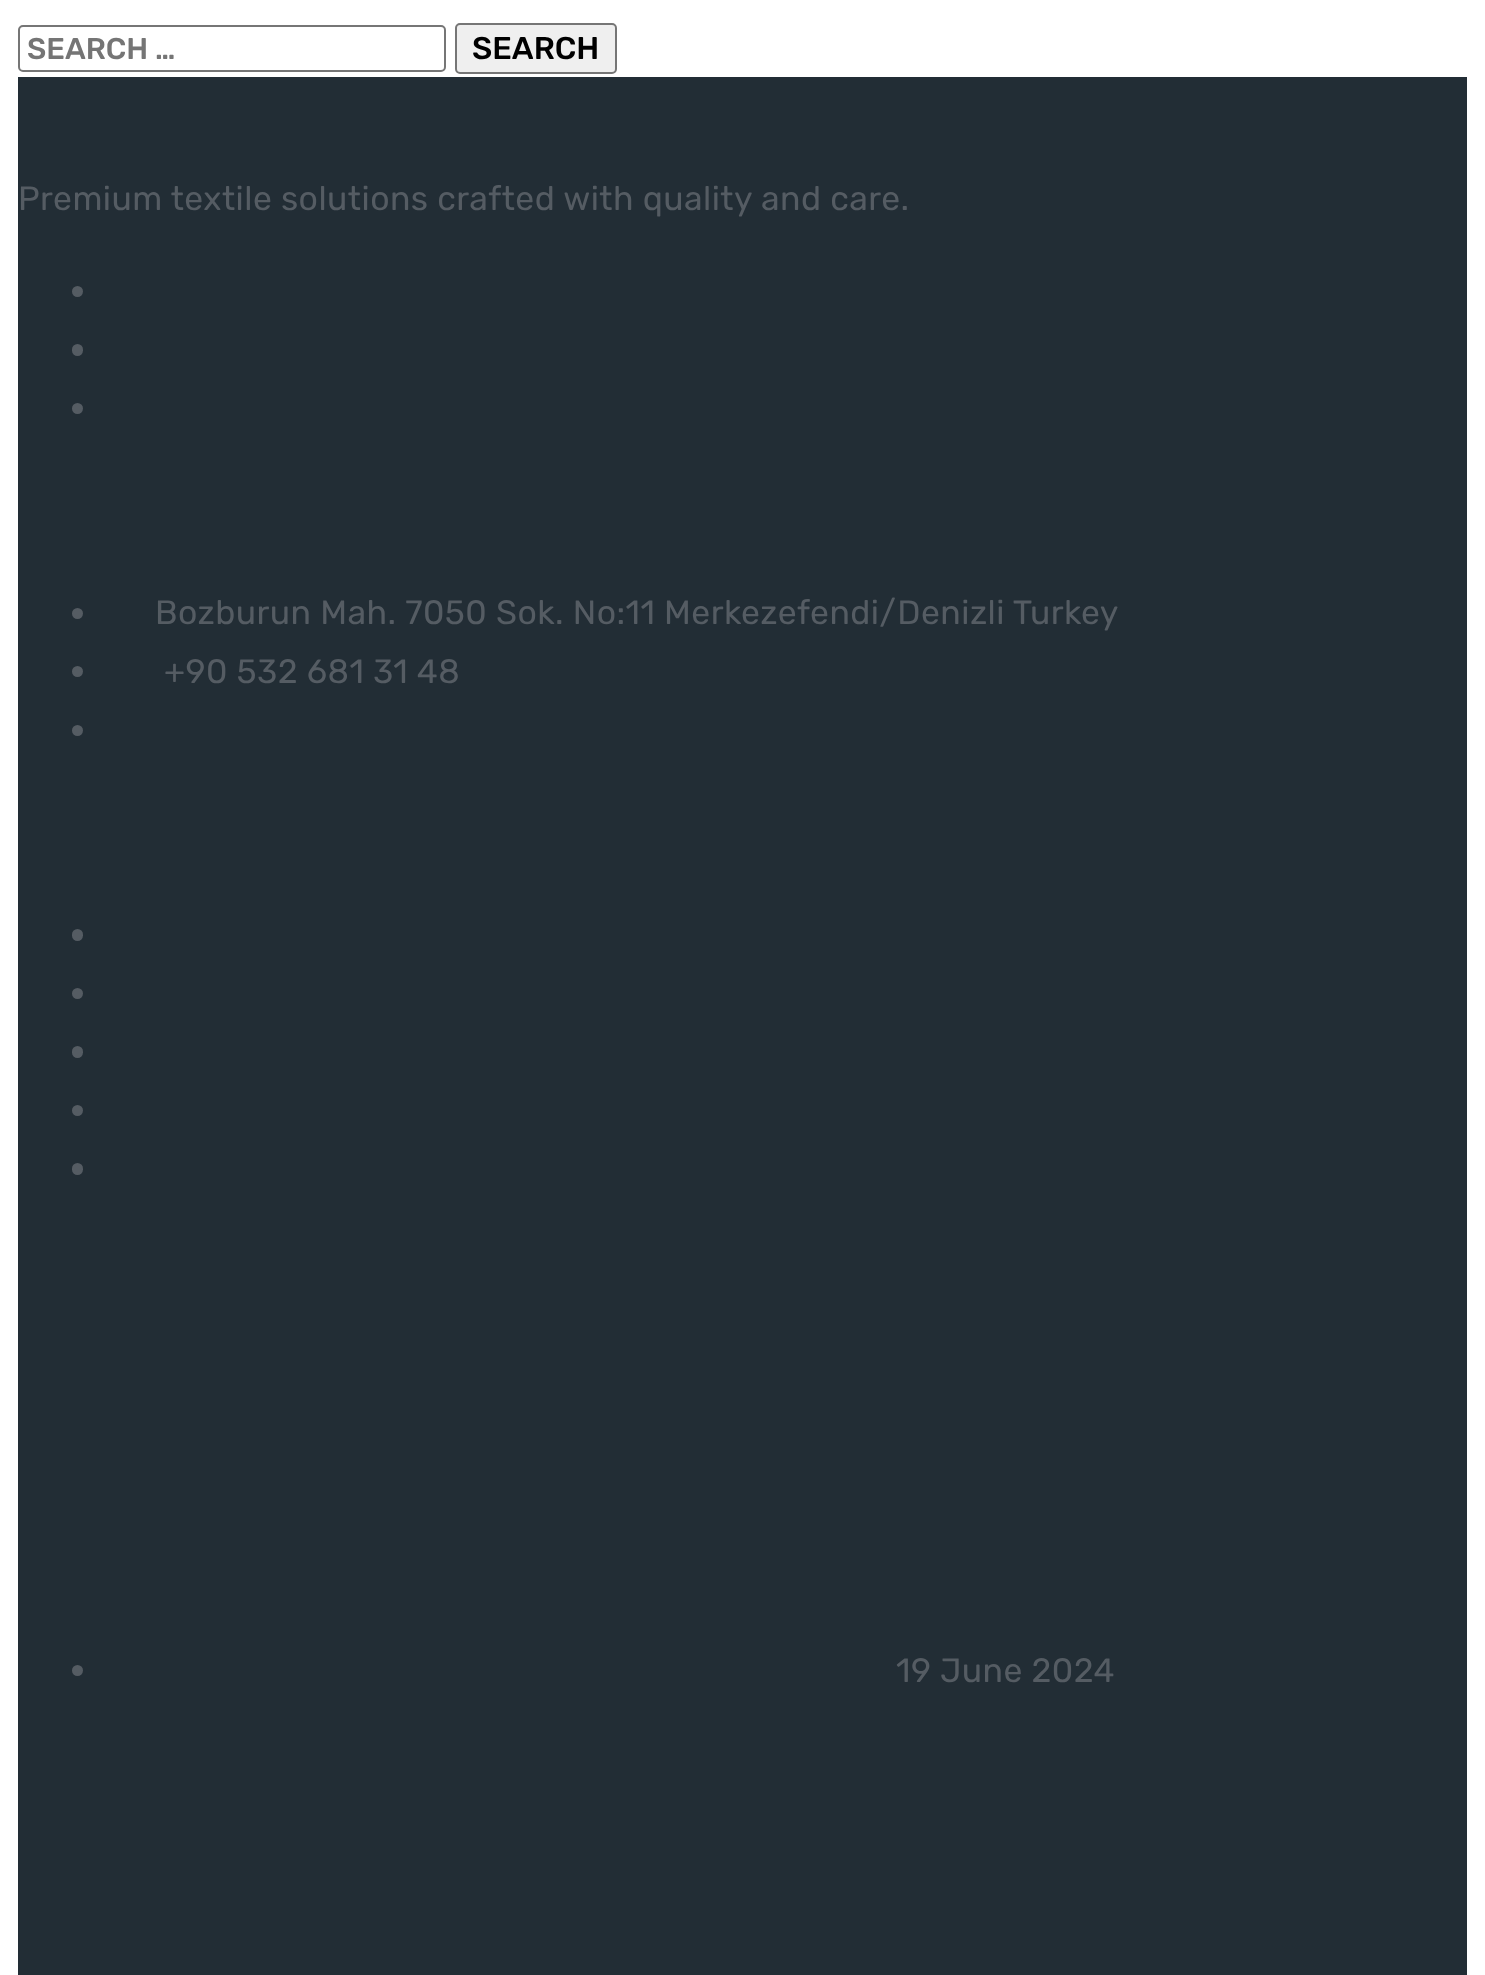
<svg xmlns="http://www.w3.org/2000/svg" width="1485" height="1975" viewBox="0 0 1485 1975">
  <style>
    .t1 { font: 500 30px Rubik; fill: #757575; }
    .t2 { font: 500 31.5px Rubik; fill: #000; }
    .t3 { font: 33.75px Rubik; letter-spacing: 0.45px; fill: #555c63; }
  </style>
  <rect width="100%" height="100%" fill="#fff"/>
  <rect x="19" y="26" width="426" height="45" rx="4" fill="none" stroke="#767676" stroke-width="2"/>
  <text x="27" y="59" class="t1">SEARCH …</text>
  <rect x="456" y="24" width="160" height="49" rx="4" fill="#efefef" stroke="#767676" stroke-width="2"/>
  <text x="472" y="59" class="t2">SEARCH</text>
  <rect x="18" y="77" width="1449" height="1898" fill="#222d35"/>
  <text x="18" y="210" class="t3">Premium textile solutions crafted with quality and care.</text>
  <circle cx="77.5" cy="291.5" r="5.5" fill="#555c63"/>
  <rect x="72" y="344" width="11" height="12" rx="5.5" fill="#555c63"/>
  <circle cx="77.5" cy="408.5" r="5.5" fill="#555c63"/>
  <circle cx="77.5" cy="613.5" r="5.5" fill="#555c63"/>
  <text x="155" y="624" class="t3">Bozburun Mah. 7050 Sok. No:11 Merkezefendi/Denizli Turkey</text>
  <circle cx="77.5" cy="671.5" r="5.5" fill="#555c63"/>
  <text x="164" y="683" class="t3">+90 532 681 31 48</text>
  <circle cx="77.5" cy="730.5" r="5.5" fill="#555c63"/>
  <rect x="72" y="929" width="11" height="12" rx="5.5" fill="#555c63"/>
  <circle cx="77.5" cy="993.5" r="5.5" fill="#555c63"/>
  <rect x="72" y="1046" width="11" height="12" rx="5.5" fill="#555c63"/>
  <circle cx="77.5" cy="1110.5" r="5.5" fill="#555c63"/>
  <rect x="72" y="1163" width="11" height="12" rx="5.5" fill="#555c63"/>
  <circle cx="77.5" cy="1670.5" r="5.5" fill="#555c63"/>
  <text x="896" y="1682" class="t3">19 June 2024</text>
</svg>
